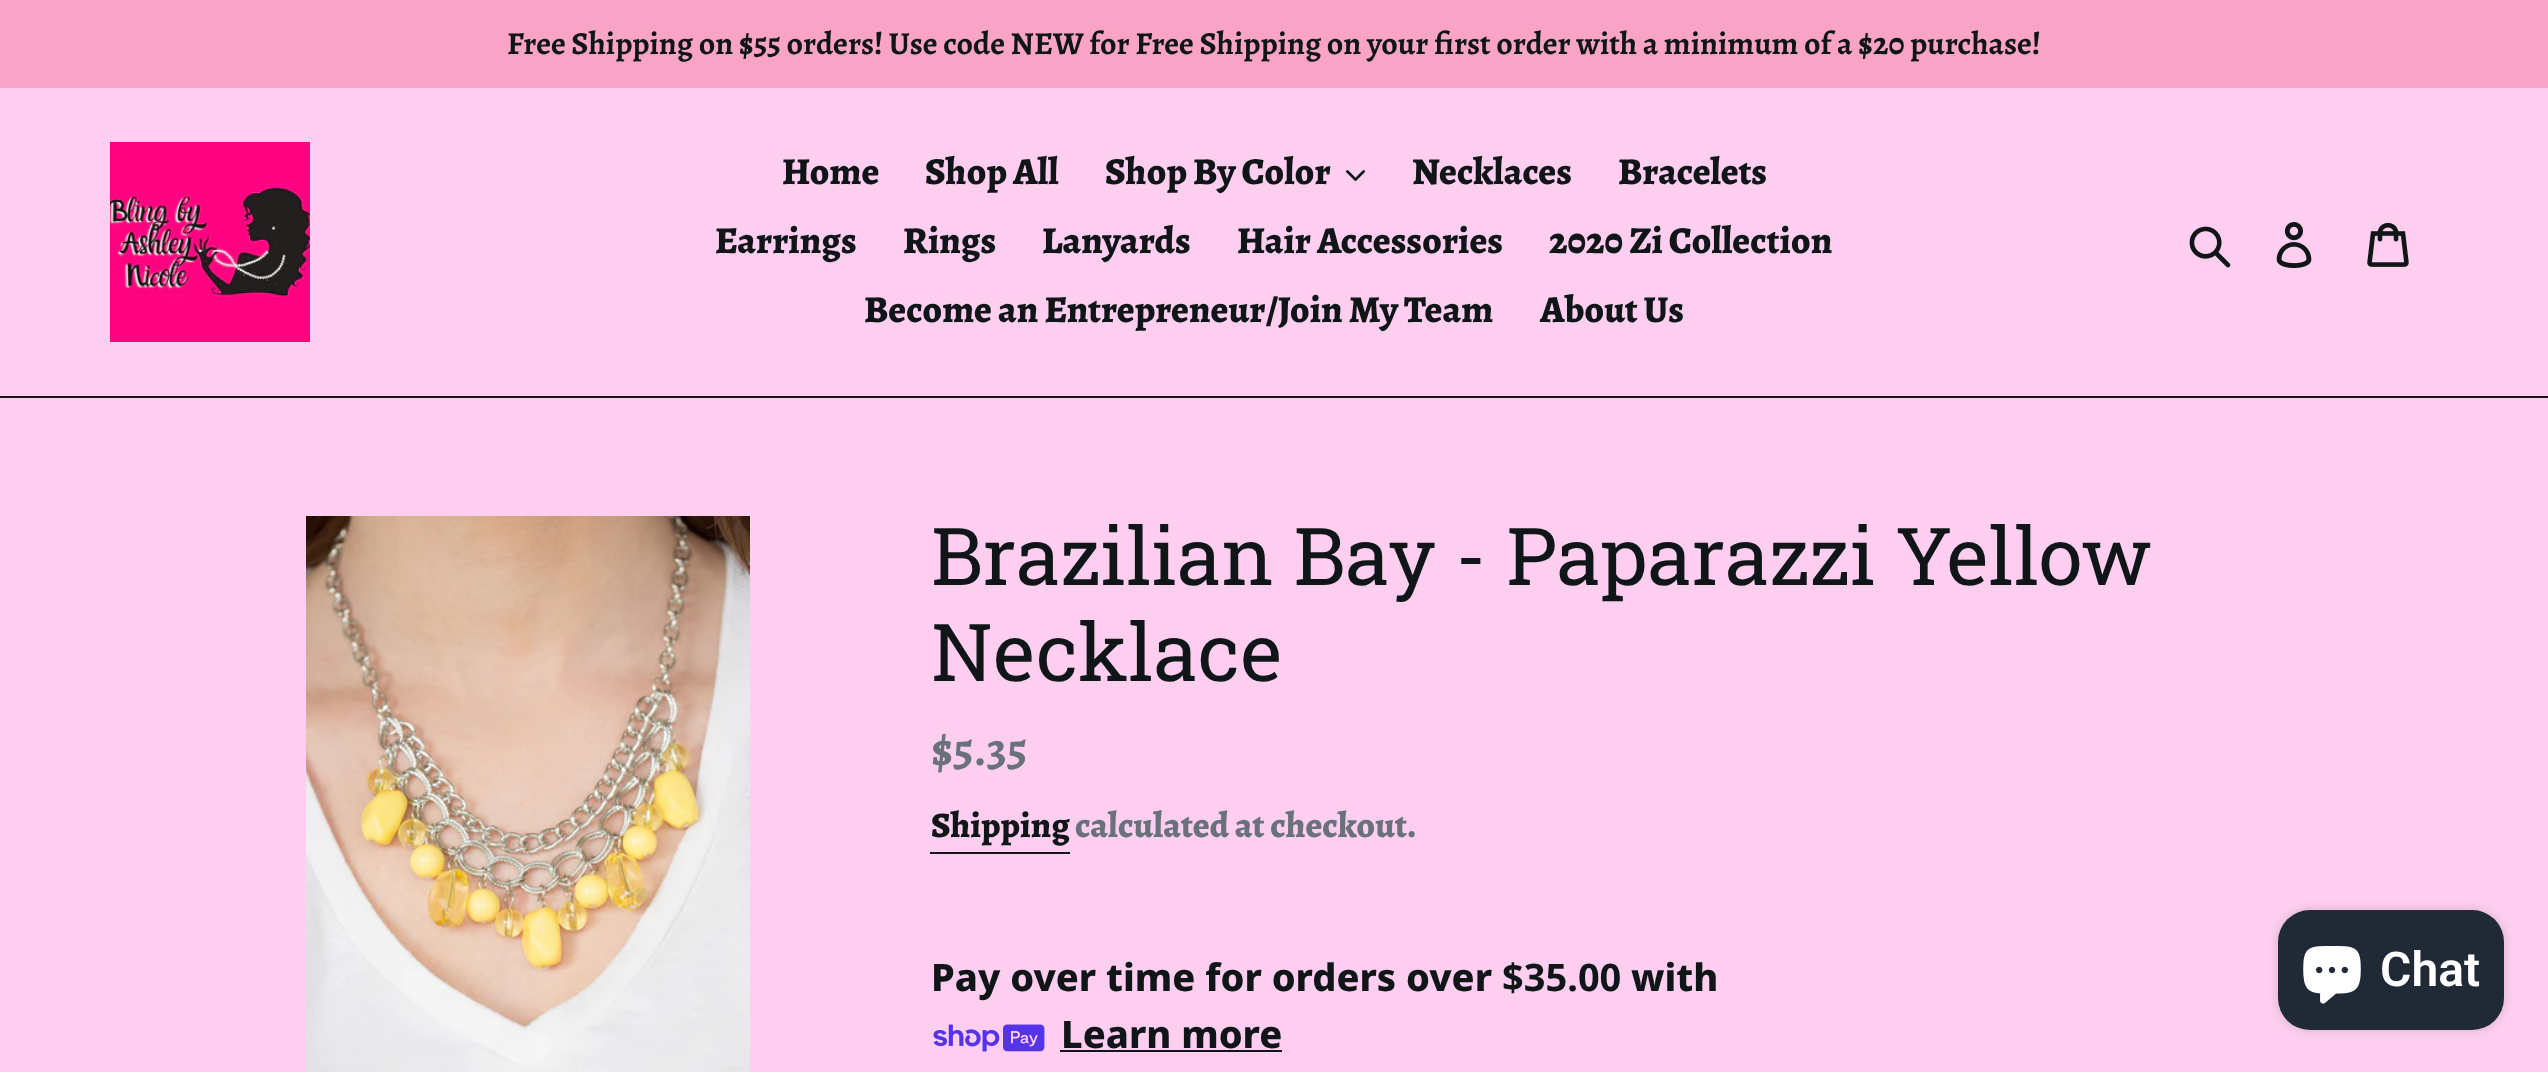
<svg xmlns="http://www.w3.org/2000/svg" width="2548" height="1072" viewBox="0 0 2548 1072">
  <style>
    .t1 { font: bold 32px Alegreya; fill: #101518; }
    .t2 { font: 800 38px Alegreya; fill: #101518; }
    .t3 { font: 80px Roboto Slab; fill: #101518; }
    .t4 { font: bold 47.5px Alegreya; fill: #69727b; }
    .t5 { font: 800 36px Alegreya; fill: #101518; }
    .t6 { font: 800 36px Alegreya; fill: #69727b; }
    .t7 { font: 800 38px Noto Sans; fill: #101518; }
    .t8 { font: bold 38px Noto Sans; fill: #101518; }
    .t9 { font: 600 48px Roboto; fill: #fff; }
  </style>
  <rect width="100%" height="100%" fill="#fdceef"/>
  <rect x="0" y="0" width="2548" height="88" fill="#f9a4c6"/>
  <text x="507" y="54" class="t1">Free Shipping on $55 orders! Use code NEW for Free Shipping on your first order with a minimum of a $20 purchase!</text>
  <rect x="0" y="396" width="2548" height="2" fill="#161617"/>
  <image x="110" y="142" width="200" height="200" href="images/1.png"/>
  <text x="782" y="184" class="t2">Home</text>
  <text x="925" y="184" class="t2">Shop All</text>
  <text x="1105" y="184" class="t2">Shop By Color</text>
  <image x="1346" y="170" width="19" height="11" href="images/2.png"/>
  <text x="1412" y="184" class="t2">Necklaces</text>
  <text x="1618" y="184" class="t2">Bracelets</text>
  <text x="715" y="253" class="t2">Earrings</text>
  <text x="903" y="253" class="t2">Rings</text>
  <text x="1042" y="253" class="t2">Lanyards</text>
  <text x="1237" y="253" class="t2">Hair Accessories</text>
  <text x="1549" y="253" class="t2">2020 Zi Collection</text>
  <text x="864" y="322" class="t2">Become an Entrepreneur/Join My Team</text>
  <text x="1540" y="322" class="t2">About Us</text>
  <image x="2189" y="226" width="42" height="42" href="images/3.png"/>
  <image x="2276" y="222" width="36" height="46" href="images/4.png"/>
  <image x="2367" y="222" width="42" height="45" href="images/5.png"/>
  <image x="306" y="516" width="444" height="556" href="images/6.png"/>
  <text x="931" y="585" class="t3">Brazilian Bay - Paparazzi Yellow</text>
  <text x="931" y="681" class="t3">Necklace</text>
  <text x="931" y="765" class="t4">$5.35</text>
  <text x="931" y="837" class="t5">Shipping</text>
  <rect x="930" y="852" width="140" height="2" fill="#101518"/>
  <text x="1075" y="837" class="t6">calculated at checkout.</text>
  <text x="931" y="991" class="t7">Pay over time for orders over</text>
  <text x="1502" y="991" class="t8">$35.00</text>
  <text x="1631" y="991" class="t7">with</text>
  <image x="933" y="1024" width="112" height="28" href="images/7.png"/>
  <text x="1061" y="1048" class="t7">Learn more</text>
  <rect x="1060" y="1050" width="222" height="2" fill="#101518"/>
  <rect x="2278" y="910" width="226" height="120" rx="32" fill="#00000026" filter="blur(5px)"/>
  <rect x="2278" y="910" width="226" height="120" rx="32" fill="#202a36"/>
  <image x="2303" y="946" width="58" height="58" href="images/8.png"/>
  <text x="2380" y="986" class="t9">Chat</text>
</svg>
